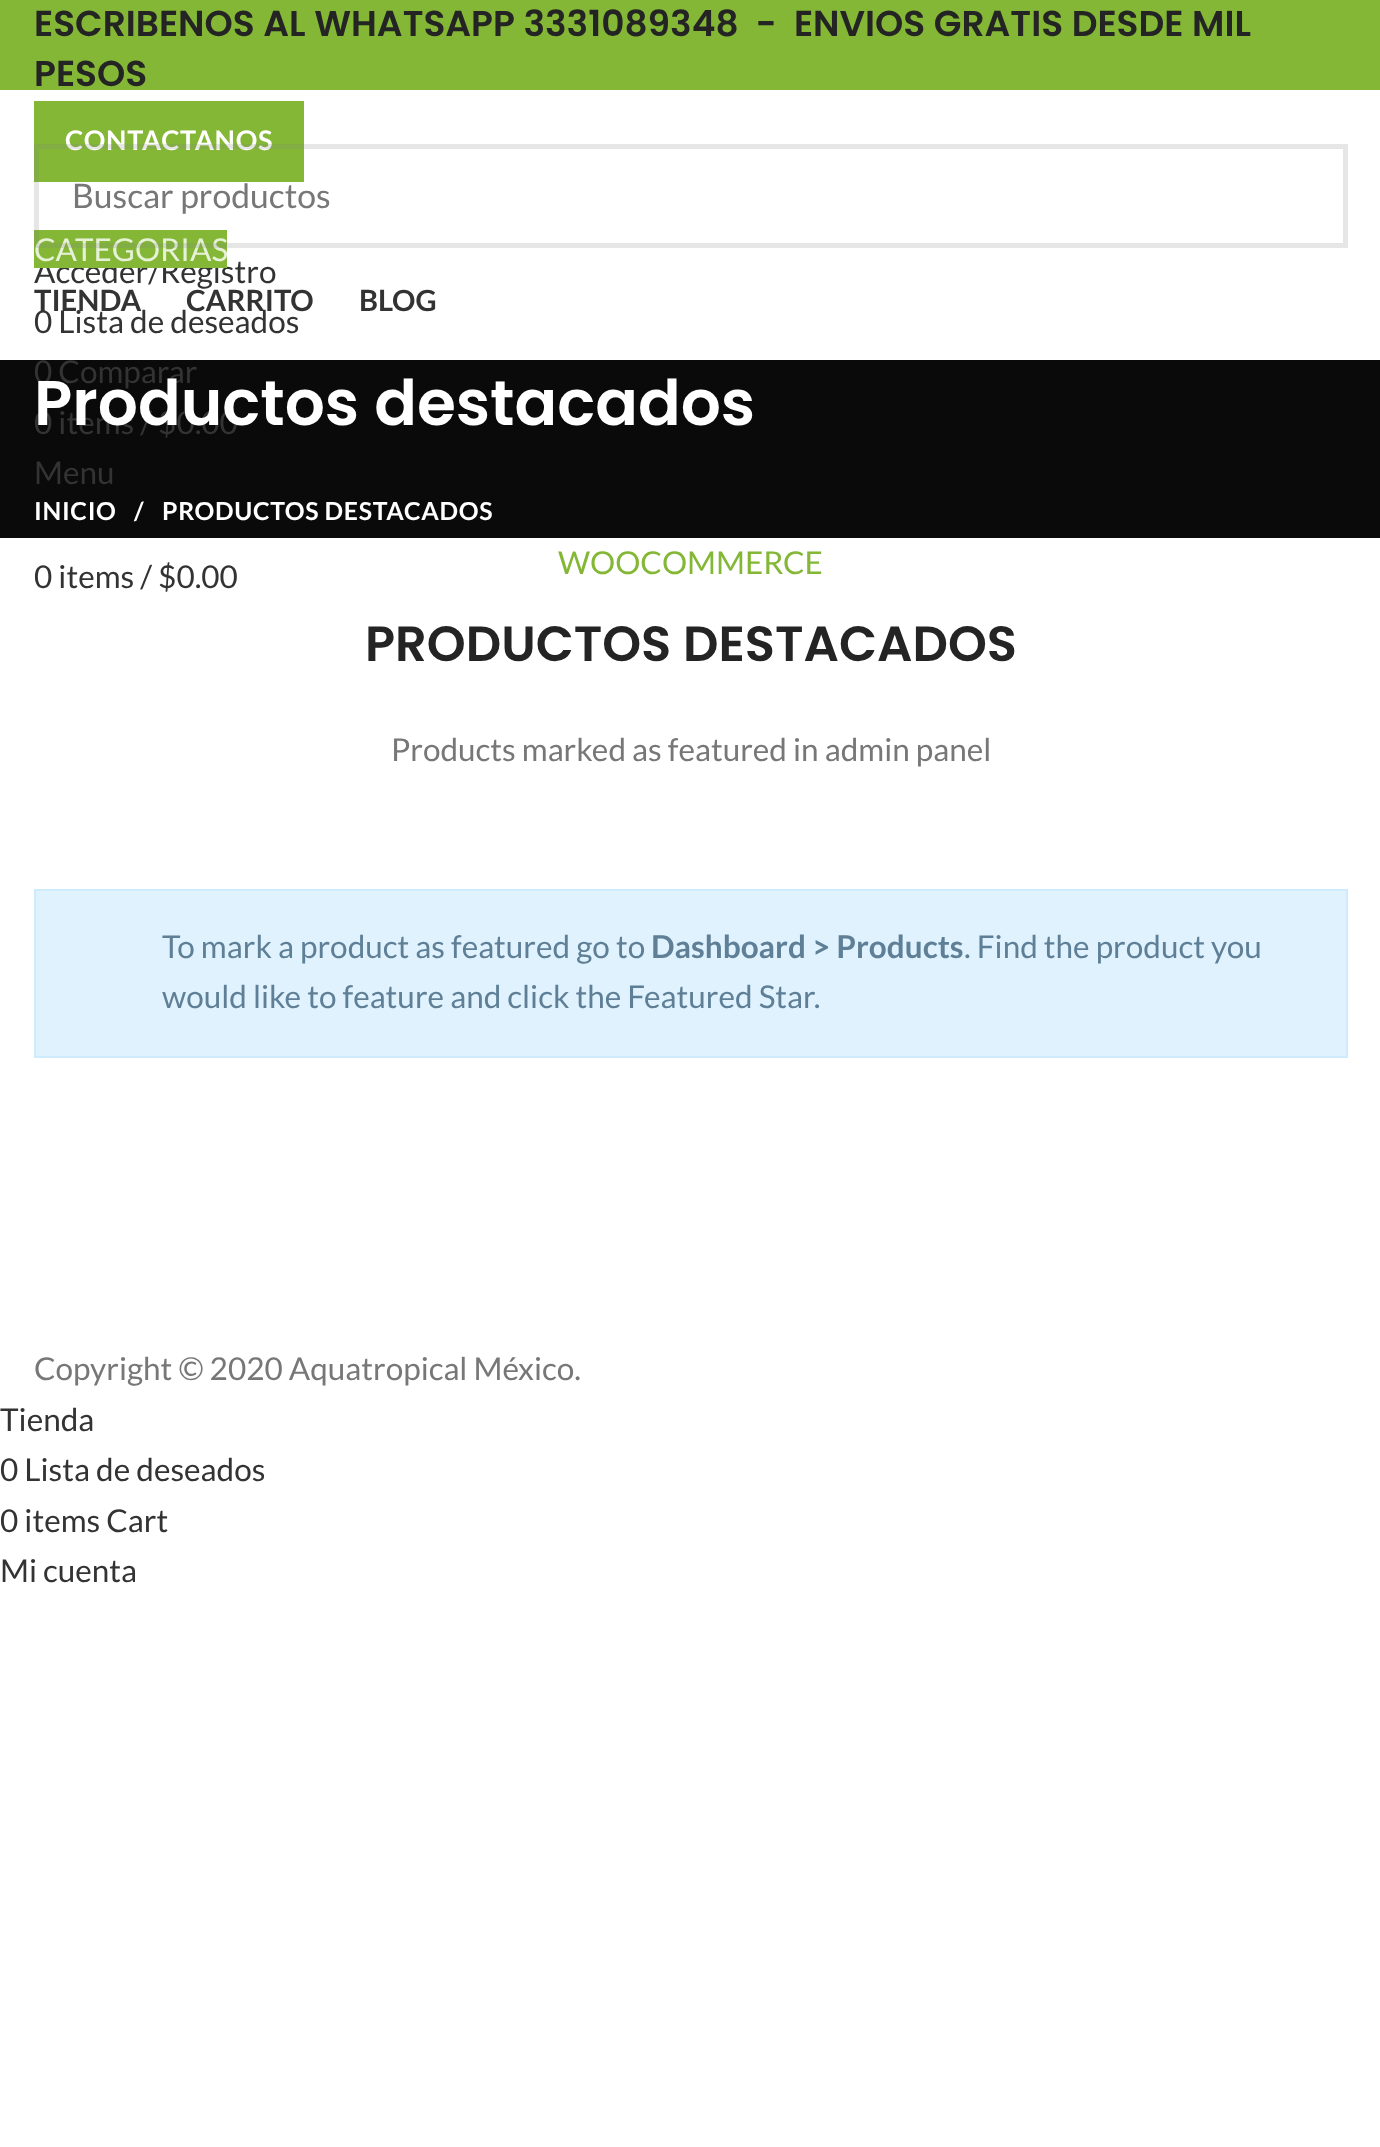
<svg xmlns="http://www.w3.org/2000/svg" width="1380" height="2147" viewBox="0 0 1380 2147">
  <style>
    .t1 { font: 600 36px Poppins; fill: #242424; }
    .t2 { font: bold 27px Lato; letter-spacing: 0.7px; fill: #fff; }
    .t3 { font: 31.5px Lato; fill: #333; }
    .t4 { font: 31.5px Lato; fill: #e6f1d7; }
    .t5 { font: 33.75px Lato; fill: #777; }
    .t6 { font: bold 29.25px Lato; fill: #333; }
    .t7 { font: 600 63px Poppins; fill: #fff; }
    .t8 { font: bold 24.75px Lato; letter-spacing: 0.7px; fill: #fff; }
    .t9 { font: 31.5px Lato; fill: #83b735; }
    .t10 { font: 600 49.5px Poppins; fill: #242424; }
    .t11 { font: 31.5px Lato; fill: #777; }
    .t12 { font: 31.5px Lato; fill: #5e7f96; }
    .t13 { font: bold 31.5px Lato; fill: #5e7f96; }
  </style>
  <rect width="100%" height="100%" fill="#fff"/>
  <rect x="0" y="0" width="1380" height="90" fill="#83b735"/>
  <text x="34" y="36" class="t1" xml:space="preserve">ESCRIBENOS AL WHATSAPP 3331089348  -  ENVIOS GRATIS DESDE MIL</text>
  <text x="34" y="86" class="t1">PESOS</text>
  <rect x="34" y="101" width="270" height="81" fill="#83b735"/>
  <text x="65" y="150" class="t2">CONTACTANOS</text>
  <text x="34" y="283" class="t3">Acceder/Registro</text>
  <rect x="34" y="230" width="193" height="38" fill="#83b735"/>
  <text x="34" y="261" class="t4">CATEGORIAS</text>
  <rect x="36.5" y="146.5" width="1309" height="99" fill="none" stroke="#81818133" stroke-width="5"/>
  <text x="72" y="208" class="t5">Buscar productos</text>
  <text x="34" y="333" class="t3">0 Lista de deseados</text>
  <rect x="0" y="360" width="1380" height="178" fill="#0a0a0a"/>
  <text x="34" y="383" class="t3">0 Comparar</text>
  <text x="34" y="434" class="t3">0 items / $0.00</text>
  <text x="34" y="484" class="t3">Menu</text>
  <text x="34" y="588" class="t3">0 items / $0.00</text>
  <text x="34" y="311" class="t6">TIENDA</text>
  <text x="186" y="311" class="t6">CARRITO</text>
  <text x="359" y="311" class="t6">BLOG</text>
  <text x="34" y="425" class="t7">Productos destacados</text>
  <text x="34" y="520" class="t8">INICIO</text>
  <text x="134" y="520" class="t8">/</text>
  <text x="162" y="520" class="t8">PRODUCTOS DESTACADOS</text>
  <text x="558" y="574" class="t9">WOOCOMMERCE</text>
  <text x="365" y="661" class="t10">PRODUCTOS DESTACADOS</text>
  <text x="391" y="761" class="t11">Products marked as featured in admin panel</text>
  <rect x="35" y="890" width="1312" height="167" fill="#dff2fe" stroke="#cfebfe" stroke-width="2"/>
  <text x="162" y="958" class="t12">To mark a product as featured go to</text>
  <text x="651" y="958" class="t13">Dashboard &gt; Products</text>
  <text x="964" y="958" class="t12">. Find the product you</text>
  <text x="162" y="1008" class="t12">would like to feature and click the Featured Star.</text>
  <text x="34" y="1380" class="t11">Copyright © 2020 Aquatropical México.</text>
  <text x="0" y="1431" class="t3">Tienda</text>
  <text x="0" y="1481" class="t3">0 Lista de deseados</text>
  <text x="0" y="1532" class="t3">0 items Cart</text>
  <text x="0" y="1582" class="t3">Mi cuenta</text>
</svg>
